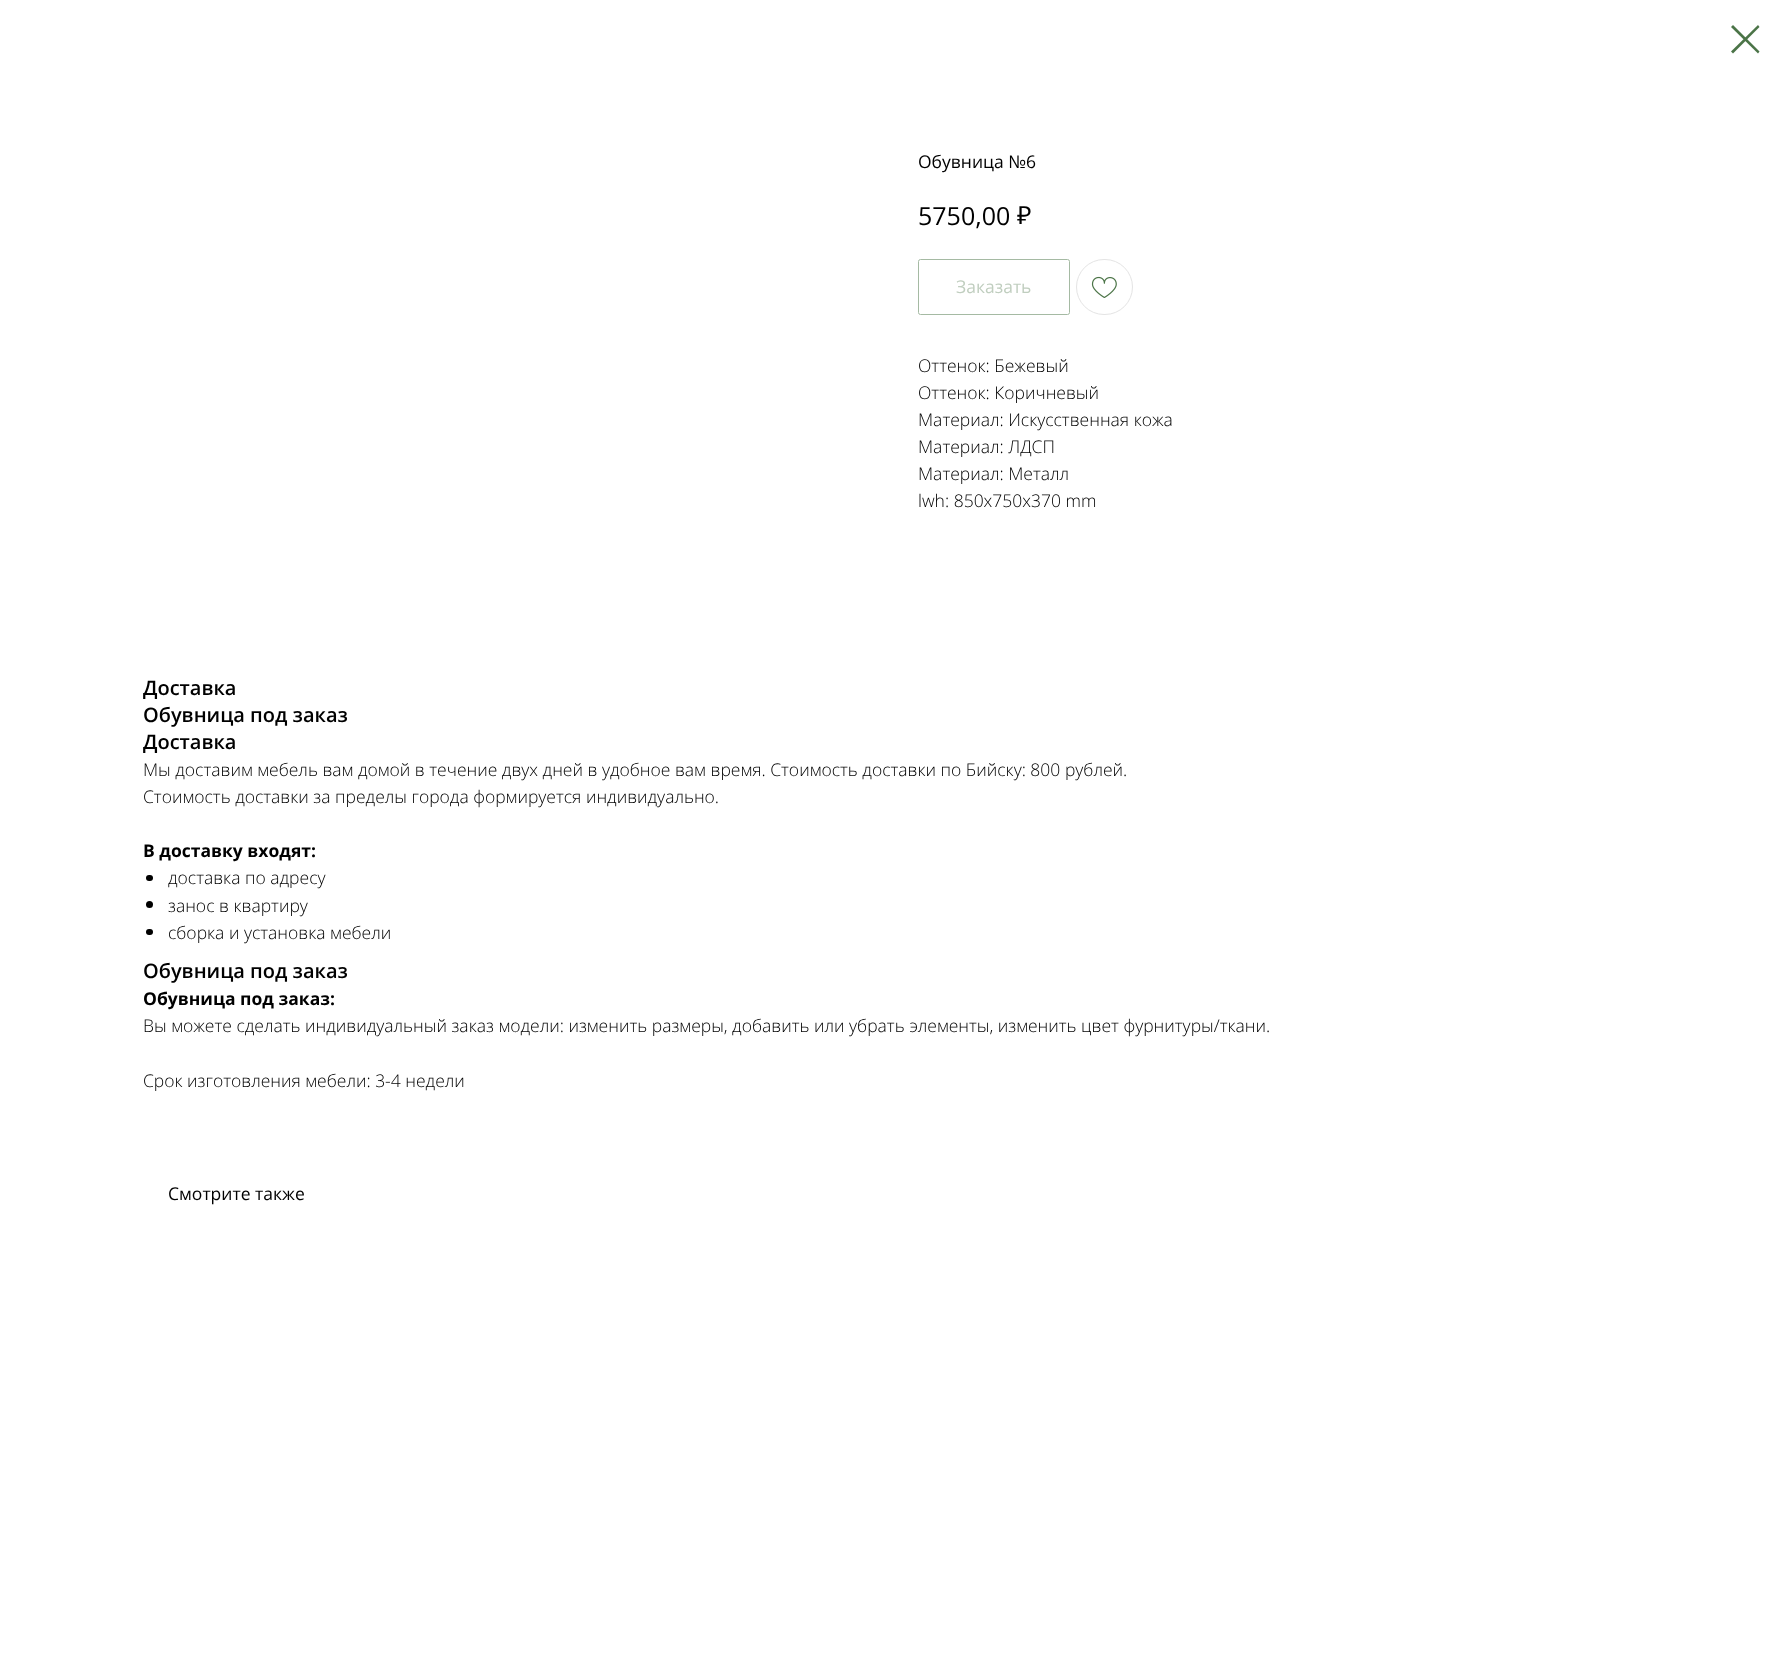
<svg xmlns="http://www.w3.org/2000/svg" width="1785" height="1661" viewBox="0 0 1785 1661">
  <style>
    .t1 { font: 17.5px Open Sans; fill: #000; }
    .t2 { font: 25px Open Sans; fill: #000; }
    .t3 { font: 25px Noto Sans; fill: #000; }
    .t4 { font: 17.5px Open Sans; fill: #c0cebf; }
    .t5 { font: 300 17.5px Open Sans; fill: #000; }
    .t6 { font: 600 20px Open Sans; fill: #000; }
    .t7 { font: bold 17.5px Open Sans; fill: #000; }
  </style>
  <rect width="100%" height="100%" fill="#fff"/>
  <path d="M1731 27L1733 25L1759.5 51.5L1758 53.5Z" fill="#4b7447" fill-rule="evenodd"/>
  <path d="M1758 25L1759.5 27L1733 53.5L1731 51.5Z" fill="#4b7447" fill-rule="evenodd"/>
  <text x="918" y="168" class="t1">Обувница №6</text>
  <text x="918" y="225" class="t2">5750,00</text>
  <text x="1017" y="224" class="t3">₽</text>
  <rect x="918.5" y="259.5" width="151" height="55" rx="2" fill="none" stroke="#a5baa3"/>
  <text x="956" y="293" class="t4">Заказать</text>
  <rect x="1076.5" y="259.5" width="56" height="55" rx="27.5" fill="none" stroke="#e4e4e4"/>
  <image x="1091" y="276" width="26" height="22" href="images/1.png"/>
  <text x="918" y="372" class="t5">Оттенок: Бежевый</text>
  <text x="918" y="399" class="t5">Оттенок: Коричневый</text>
  <text x="918" y="426" class="t5">Материал: Искусственная кожа</text>
  <text x="918" y="453" class="t5">Материал: ЛДСП</text>
  <text x="918" y="480" class="t5">Материал: Металл</text>
  <text x="918" y="507" class="t5">lwh: 850x750x370 mm</text>
  <text x="143" y="695" class="t6">Доставка</text>
  <text x="143" y="722" class="t6">Обувница под заказ</text>
  <text x="143" y="749" class="t6">Доставка</text>
  <text x="143" y="776" class="t5">Мы доставим мебель вам домой в течение двух дней в удобное вам время. Стоимость доставки по Бийску: 800 рублей.</text>
  <text x="143" y="803" class="t5">Стоимость доставки за пределы города формируется индивидуально.</text>
  <text x="143" y="857" class="t7">В доставку входят:</text>
  <rect x="146" y="875" width="7" height="6" rx="3" fill="#000"/>
  <text x="168" y="884" class="t5">доставка по адресу</text>
  <circle cx="149.5" cy="904.5" r="3.5" fill="#000"/>
  <text x="168" y="912" class="t5">занос в квартиру</text>
  <rect x="146" y="929" width="7" height="6" rx="3" fill="#000"/>
  <text x="168" y="939" class="t5">сборка и установка мебели</text>
  <text x="143" y="978" class="t6">Обувница под заказ</text>
  <text x="143" y="1005" class="t7">Обувница под заказ:</text>
  <text x="143" y="1032" class="t5">Вы можете сделать индивидуальный заказ модели: изменить размеры, добавить или убрать элементы, изменить цвет фурнитуры/ткани.</text>
  <text x="143" y="1087" class="t5">Срок изготовления мебели: 3-4 недели</text>
  <text x="168" y="1200" class="t1">Смотрите также</text>
</svg>
